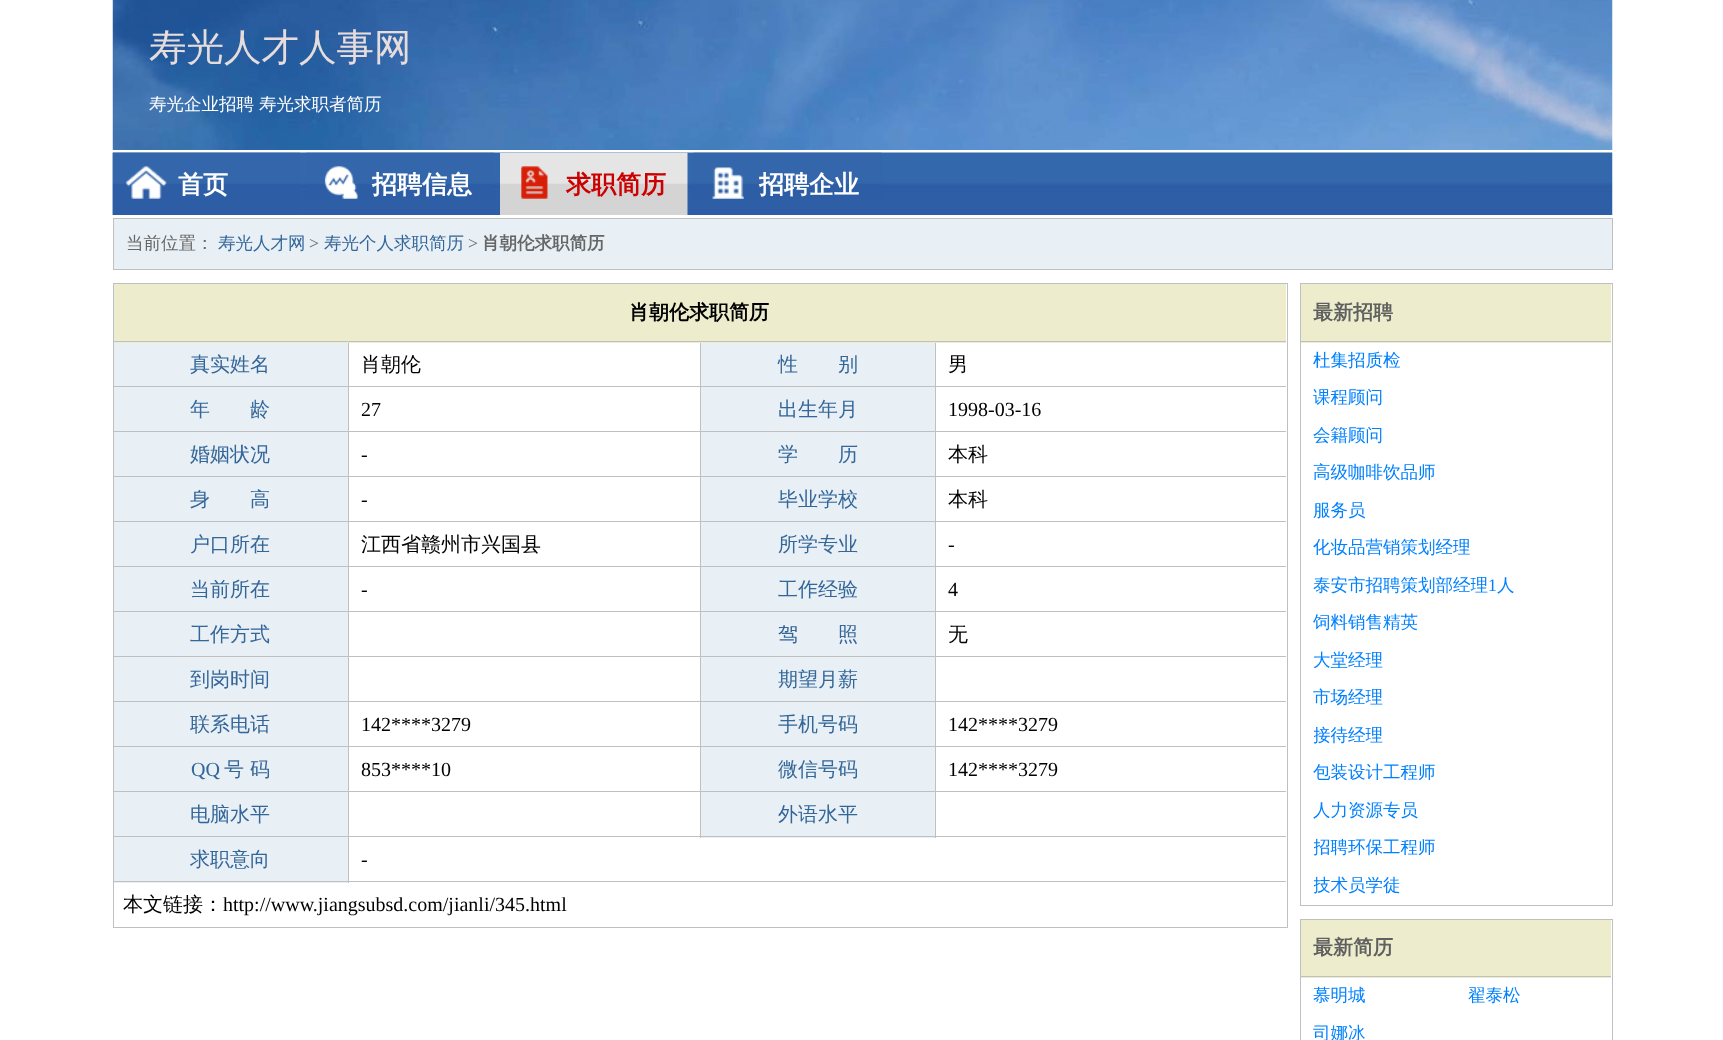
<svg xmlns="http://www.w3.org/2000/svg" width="1723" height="1040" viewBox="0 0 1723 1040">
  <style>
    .t1 { font: 500 37.5px WenQuanYi Zen Hei; fill: #e6dcdc; }
    .t2 { font: 500 17.5px WenQuanYi Zen Hei; fill: #fff; }
    .t3 { font: bold 25px WenQuanYi Zen Hei; fill: #fff; }
    .t4 { font: bold 25px WenQuanYi Zen Hei; fill: #c00; }
    .t5 { font: 500 17.5px WenQuanYi Zen Hei; fill: #666; }
    .t6 { font: 500 17.5px WenQuanYi Zen Hei; fill: #369; }
    .t7 { font: 17.5px Liberation Serif; fill: #666; }
    .t8 { font: bold 17.5px WenQuanYi Zen Hei; fill: #666; }
    .t9 { font: bold 20px WenQuanYi Zen Hei; fill: #000; }
    .t10 { font: 500 20px WenQuanYi Zen Hei; fill: #369; }
    .t11 { font: 500 20px WenQuanYi Zen Hei; fill: #000; }
    .t12 { font: 20px Liberation Serif; fill: #000; }
    .t13 { font: 20px Liberation Serif; fill: #369; }
    .t14 { font: bold 20px WenQuanYi Zen Hei; fill: #606060; }
    .t15 { font: 500 17.5px WenQuanYi Zen Hei; fill: #0080ff; }
    .t16 { font: 17.5px Liberation Serif; fill: #0080ff; }
  </style>
  <defs>
    <clipPath id="clip1"><rect x="1314" y="718" width="285" height="37"/></clipPath>
    <clipPath id="clip2"><rect x="1314" y="830" width="285" height="38"/></clipPath>
    <clipPath id="clip3"><rect x="1314" y="868" width="285" height="37"/></clipPath>
  </defs>
  <rect width="100%" height="100%" fill="#fff"/>
  <image x="112" y="0" width="1501" height="150" href="images/1.png"/>
  <text x="149" y="60" class="t1">寿光人才人事网</text>
  <text x="149" y="110" class="t2">寿光企业招聘</text>
  <text x="259" y="110" class="t2">寿光求职者简历</text>
  <image x="112" y="152" width="1501" height="63" href="images/2.png"/>
  <image x="112" y="152" width="188" height="63" href="images/3.png"/>
  <text x="178" y="193" class="t3">首页</text>
  <image x="306" y="152" width="188" height="47" href="images/4.png"/>
  <text x="372" y="193" class="t3">招聘信息</text>
  <image x="500" y="152" width="188" height="63" href="images/5.png"/>
  <text x="566" y="193" class="t4">求职简历</text>
  <image x="693" y="152" width="189" height="47" href="images/6.png"/>
  <text x="759" y="193" class="t3">招聘企业</text>
  <rect x="113.5" y="218.5" width="1499" height="51" fill="#e8eff5" stroke="#c0c0c0"/>
  <text x="126" y="249" class="t5">当前位置：</text>
  <text x="218" y="249" class="t6">寿光人才网</text>
  <text x="309" y="249" class="t7">&gt;</text>
  <text x="324" y="249" class="t6">寿光个人求职简历</text>
  <text x="468" y="249" class="t7">&gt;</text>
  <text x="482" y="249" class="t8">肖朝伦求职简历</text>
  <rect x="113.5" y="283.5" width="1174" height="644" fill="none" stroke="#c0c0c0"/>
  <rect x="114" y="284" width="1172" height="59" fill="#ededcd"/>
  <rect x="114" y="341" width="1172" height="1" fill="#c0c0c0"/>
  <text x="629" y="319" class="t9">肖朝伦求职简历</text>
  <rect x="114" y="343" width="234" height="540" fill="#e8eff5"/>
  <rect x="348" y="343" width="1" height="540" fill="#c0c0c0"/>
  <rect x="114" y="386" width="235" height="1" fill="#c0c0c0"/>
  <text x="190" y="371" class="t10">真实姓名</text>
  <rect x="700" y="343" width="1" height="495" fill="#c0c0c0"/>
  <rect x="349" y="386" width="352" height="1" fill="#c0c0c0"/>
  <text x="361" y="371" class="t11">肖朝伦</text>
  <rect x="701" y="343" width="234" height="495" fill="#e8eff5"/>
  <rect x="935" y="343" width="1" height="495" fill="#c0c0c0"/>
  <rect x="701" y="386" width="585" height="1" fill="#c0c0c0"/>
  <text x="778" y="371" class="t10">性　　别</text>
  <text x="948" y="371" class="t11">男</text>
  <rect x="114" y="431" width="1172" height="1" fill="#c0c0c0"/>
  <text x="190" y="416" class="t10">年　　龄</text>
  <text x="361" y="416" class="t12">27</text>
  <text x="778" y="416" class="t10">出生年月</text>
  <text x="948" y="416" class="t12">1998-03-16</text>
  <rect x="114" y="476" width="1172" height="1" fill="#c0c0c0"/>
  <text x="190" y="461" class="t10">婚姻状况</text>
  <text x="361" y="461" class="t12">-</text>
  <text x="778" y="461" class="t10">学　　历</text>
  <text x="948" y="461" class="t11">本科</text>
  <rect x="114" y="521" width="1172" height="1" fill="#c0c0c0"/>
  <text x="190" y="506" class="t10">身　　高</text>
  <text x="361" y="506" class="t12">-</text>
  <text x="778" y="506" class="t10">毕业学校</text>
  <text x="948" y="506" class="t11">本科</text>
  <rect x="114" y="566" width="1172" height="1" fill="#c0c0c0"/>
  <text x="190" y="551" class="t10">户口所在</text>
  <text x="361" y="551" class="t11">江西省赣州市兴国县</text>
  <text x="778" y="551" class="t10">所学专业</text>
  <text x="948" y="551" class="t12">-</text>
  <rect x="114" y="611" width="1172" height="1" fill="#c0c0c0"/>
  <text x="190" y="596" class="t10">当前所在</text>
  <text x="361" y="596" class="t12">-</text>
  <text x="778" y="596" class="t10">工作经验</text>
  <text x="948" y="596" class="t12">4</text>
  <rect x="114" y="656" width="1172" height="1" fill="#c0c0c0"/>
  <text x="190" y="641" class="t10">工作方式</text>
  <text x="778" y="641" class="t10">驾　　照</text>
  <text x="948" y="641" class="t11">无</text>
  <rect x="114" y="701" width="1172" height="1" fill="#c0c0c0"/>
  <text x="190" y="686" class="t10">到岗时间</text>
  <text x="778" y="686" class="t10">期望月薪</text>
  <rect x="114" y="746" width="1172" height="1" fill="#c0c0c0"/>
  <text x="190" y="731" class="t10">联系电话</text>
  <text x="361" y="731" class="t12">142****3279</text>
  <text x="778" y="731" class="t10">手机号码</text>
  <text x="948" y="731" class="t12">142****3279</text>
  <rect x="114" y="791" width="1172" height="1" fill="#c0c0c0"/>
  <text x="191" y="776" class="t13">QQ</text>
  <text x="224" y="776" class="t10">号 码</text>
  <text x="361" y="776" class="t12">853****10</text>
  <text x="778" y="776" class="t10">微信号码</text>
  <text x="948" y="776" class="t12">142****3279</text>
  <rect x="114" y="836" width="1172" height="1" fill="#c0c0c0"/>
  <text x="190" y="821" class="t10">电脑水平</text>
  <text x="778" y="821" class="t10">外语水平</text>
  <rect x="114" y="881" width="1172" height="1" fill="#c0c0c0"/>
  <text x="190" y="866" class="t10">求职意向</text>
  <text x="361" y="866" class="t12">-</text>
  <text x="123" y="911" class="t11">本文链接：</text>
  <text x="223" y="911" class="t12">http://www.jiangsubsd.com/jianli/345.html</text>
  <rect x="1300.5" y="283.5" width="312" height="622" fill="none" stroke="#c0c0c0"/>
  <rect x="1301" y="284" width="310" height="59" fill="#ededcd"/>
  <rect x="1301" y="341" width="310" height="1" fill="#c0c0c0"/>
  <text x="1313" y="319" class="t14">最新招聘</text>
  <text x="1313" y="366" class="t15">杜集招质检</text>
  <text x="1313" y="403" class="t15">课程顾问</text>
  <text x="1313" y="441" class="t15">会籍顾问</text>
  <text x="1313" y="478" class="t15">高级咖啡饮品师</text>
  <text x="1313" y="516" class="t15">服务员</text>
  <text x="1313" y="553" class="t15">化妆品营销策划经理</text>
  <text x="1313" y="591" class="t15">泰安市招聘策划部经理</text>
  <text x="1488" y="591" class="t16">1</text>
  <text x="1497" y="591" class="t15">人</text>
  <text x="1313" y="628" class="t15">饲料销售精英</text>
  <text x="1313" y="666" class="t15">大堂经理</text>
  <text x="1313" y="703" class="t15">市场经理</text>
  <g clip-path="url(#clip1)">
    <text x="1313" y="741" class="t15">接待经理</text>
  </g>
  <text x="1313" y="778" class="t15">包装设计工程师</text>
  <text x="1313" y="816" class="t15">人力资源专员</text>
  <g clip-path="url(#clip2)">
    <text x="1313" y="853" class="t15">招聘环保工程师</text>
  </g>
  <g clip-path="url(#clip3)">
    <text x="1313" y="891" class="t15">技术员学徒</text>
  </g>
  <rect x="1300.5" y="919.5" width="312" height="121" fill="none" stroke="#c0c0c0"/>
  <rect x="1301" y="920" width="310" height="58" fill="#ededcd"/>
  <rect x="1301" y="976" width="310" height="1" fill="#c0c0c0"/>
  <text x="1313" y="954" class="t14">最新简历</text>
  <text x="1313" y="1001" class="t15">慕明城</text>
  <text x="1468" y="1001" class="t15">翟泰松</text>
  <text x="1313" y="1039" class="t15">司娜冰</text>
</svg>
